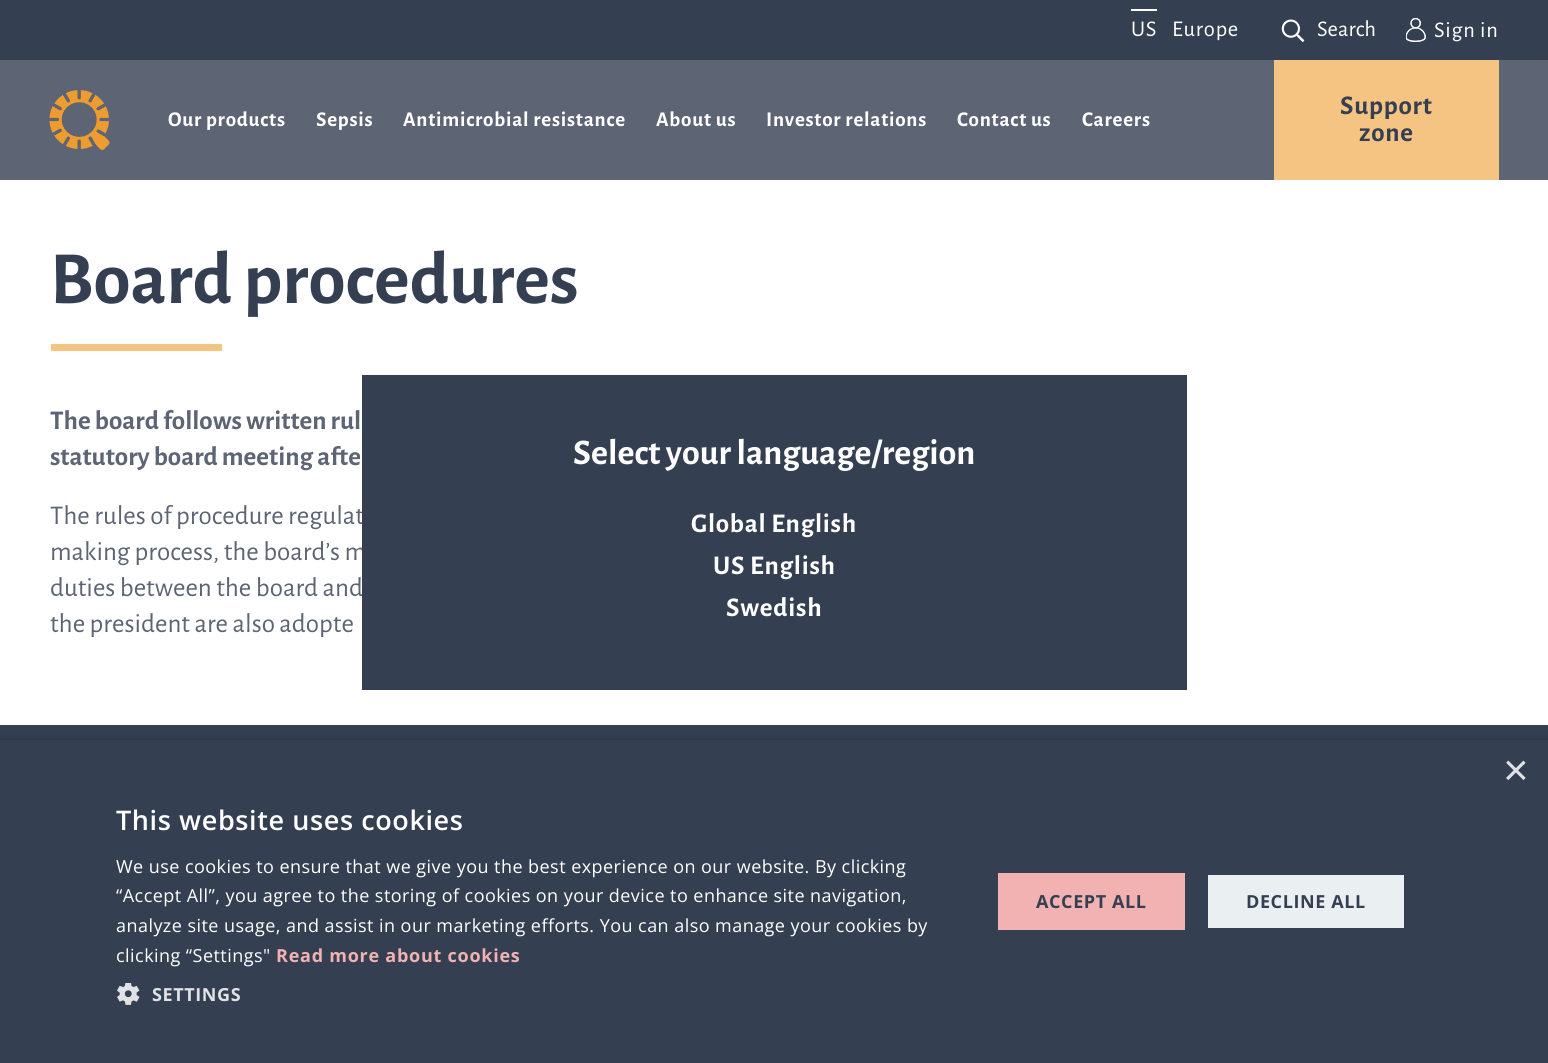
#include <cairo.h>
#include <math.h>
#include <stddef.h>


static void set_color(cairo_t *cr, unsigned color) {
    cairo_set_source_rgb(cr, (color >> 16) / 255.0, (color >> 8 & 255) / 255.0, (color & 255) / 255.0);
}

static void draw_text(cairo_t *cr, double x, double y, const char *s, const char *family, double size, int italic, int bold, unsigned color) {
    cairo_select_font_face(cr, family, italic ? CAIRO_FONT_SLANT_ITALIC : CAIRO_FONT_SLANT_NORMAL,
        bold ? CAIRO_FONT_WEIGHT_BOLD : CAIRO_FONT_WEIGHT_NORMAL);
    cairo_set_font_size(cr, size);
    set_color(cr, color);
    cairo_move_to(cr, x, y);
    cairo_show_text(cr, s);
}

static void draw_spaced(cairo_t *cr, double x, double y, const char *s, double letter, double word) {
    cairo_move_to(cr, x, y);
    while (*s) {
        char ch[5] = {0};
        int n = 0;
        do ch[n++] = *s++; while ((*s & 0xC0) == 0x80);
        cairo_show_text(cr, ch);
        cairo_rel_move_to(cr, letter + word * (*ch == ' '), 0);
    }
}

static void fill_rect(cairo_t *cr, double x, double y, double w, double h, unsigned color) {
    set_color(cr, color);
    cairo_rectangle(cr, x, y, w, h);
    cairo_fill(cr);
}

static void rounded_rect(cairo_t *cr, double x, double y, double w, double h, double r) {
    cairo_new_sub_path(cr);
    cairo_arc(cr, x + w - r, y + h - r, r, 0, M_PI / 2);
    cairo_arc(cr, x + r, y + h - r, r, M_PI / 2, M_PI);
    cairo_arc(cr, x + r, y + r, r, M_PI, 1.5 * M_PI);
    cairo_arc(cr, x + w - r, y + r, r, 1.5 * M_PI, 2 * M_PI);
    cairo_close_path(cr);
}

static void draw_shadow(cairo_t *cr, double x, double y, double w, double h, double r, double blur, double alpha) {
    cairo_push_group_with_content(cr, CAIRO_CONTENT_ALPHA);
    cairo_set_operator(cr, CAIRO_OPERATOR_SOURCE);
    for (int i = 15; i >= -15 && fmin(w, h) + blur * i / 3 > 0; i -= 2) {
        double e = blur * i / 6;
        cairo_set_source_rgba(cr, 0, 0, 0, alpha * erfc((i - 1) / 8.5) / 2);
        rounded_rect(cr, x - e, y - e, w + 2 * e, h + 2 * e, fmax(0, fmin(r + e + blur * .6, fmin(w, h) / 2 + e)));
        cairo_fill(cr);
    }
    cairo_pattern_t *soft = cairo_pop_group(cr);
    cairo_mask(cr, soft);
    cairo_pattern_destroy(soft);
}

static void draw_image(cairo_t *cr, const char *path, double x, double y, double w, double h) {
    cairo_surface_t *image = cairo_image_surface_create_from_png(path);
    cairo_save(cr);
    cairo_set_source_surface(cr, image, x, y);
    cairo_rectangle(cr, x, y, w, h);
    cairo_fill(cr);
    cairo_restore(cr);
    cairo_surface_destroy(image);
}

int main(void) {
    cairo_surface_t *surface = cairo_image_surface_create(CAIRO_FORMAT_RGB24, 1548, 1063);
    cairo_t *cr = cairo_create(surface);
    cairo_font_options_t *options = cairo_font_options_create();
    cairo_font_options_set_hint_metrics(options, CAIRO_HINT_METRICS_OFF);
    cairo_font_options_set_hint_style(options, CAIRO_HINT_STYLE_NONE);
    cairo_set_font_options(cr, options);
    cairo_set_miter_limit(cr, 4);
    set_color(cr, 0xFFFFFF);
    cairo_paint(cr);
    fill_rect(cr, 0, 60, 1548, 120, 0x5D6575);
    fill_rect(cr, 0, 0, 1548, 60, 0x343F52);
    cairo_select_font_face(cr, "Alegreya Sans", CAIRO_FONT_SLANT_NORMAL, CAIRO_FONT_WEIGHT_NORMAL);
    cairo_set_font_size(cr, 22.5);
    set_color(cr, 0xFFFFFF);
    draw_spaced(cr, 1131, 36, "US", 0.75, 0);
    fill_rect(cr, 1131, 9, 26, 2, 0xFFFFFF);
    draw_spaced(cr, 1172, 36, "Europe", 0.75, 0);
    draw_image(cr, "assets/img1.png", 1281, 19, 24, 23);
    draw_text(cr, 1317, 36, "Search", "Alegreya Sans", 22.5, 0, 0, 0xFFFFFF);
    draw_image(cr, "assets/img2.png", 1406, 18, 20, 24);
    draw_spaced(cr, 1434, 37, "Sign in", 0.75, 0);
    draw_image(cr, "assets/img3.png", 49, 90, 61, 60);
    cairo_select_font_face(cr, "Alegreya Sans", CAIRO_FONT_SLANT_NORMAL, CAIRO_FONT_WEIGHT_BOLD);
    cairo_set_font_size(cr, 21);
    draw_spaced(cr, 168, 126, "Our products", 0.75, 0);
    cairo_save(cr);
    cairo_rectangle(cr, 317, 60, 57, 120);
    cairo_clip(cr);
    draw_spaced(cr, 316, 126, "Sepsis", 0.75, 0);
    cairo_restore(cr);
    draw_spaced(cr, 403, 126, "Antimicrobial resistance", 0.75, 0);
    draw_spaced(cr, 656, 126, "About us", 0.75, 0);
    draw_spaced(cr, 766, 126, "Investor relations", 0.75, 0);
    draw_spaced(cr, 957, 126, "Contact us", 0.75, 0);
    draw_spaced(cr, 1082, 126, "Careers", 0.75, 0);
    fill_rect(cr, 1274, 60, 225, 120, 0xF5C482);
    cairo_set_font_size(cr, 27);
    set_color(cr, 0x343F52);
    draw_spaced(cr, 1340, 114, "Support", 0.75, 0);
    draw_spaced(cr, 1359, 141, "zone", 0.75, 0);
    draw_text(cr, 50, 303, "Board procedures", "Alegreya Sans", 75, 0, 1, 0x343F52);
    fill_rect(cr, 51, 344, 171, 7, 0xF5C482);
    draw_text(cr, 50, 429, "The board follows written rul", "Alegreya Sans", 27, 0, 1, 0x5D6575);
    draw_text(cr, 50, 465, "statutory board meeting afte", "Alegreya Sans", 27, 0, 1, 0x5D6575);
    draw_text(cr, 50, 524, "The rules of procedure regulat", "Alegreya Sans", 27, 0, 0, 0x5D6575);
    draw_text(cr, 50, 560, "making process, the board’s m", "Alegreya Sans", 27, 0, 0, 0x5D6575);
    draw_text(cr, 50, 596, "duties between the board and", "Alegreya Sans", 27, 0, 0, 0x5D6575);
    draw_text(cr, 50, 632, "the president are also adopte", "Alegreya Sans", 27, 0, 0, 0x5D6575);
    fill_rect(cr, 362, 375, 825, 315, 0x343F52);
    draw_text(cr, 573, 464, "Select your language/region", "Alegreya Sans", 36, 0, 1, 0xFFFFFF);
    cairo_set_font_size(cr, 27);
    draw_spaced(cr, 691, 532, "Global English", 0.75, 0);
    draw_spaced(cr, 713, 574, "US English", 0.75, 0);
    draw_spaced(cr, 726, 616, "Swedish", 0.75, 0);
    fill_rect(cr, 0, 725, 1548, 15, 0x343F52);
    set_color(cr, 0x000000);
    draw_shadow(cr, 2, 743, 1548, 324, 0, 6, 0.35);
    fill_rect(cr, 0, 740, 1548, 323, 0x343F52);
    draw_text(cr, 1503, 785, "×", "Liberation Sans", 44, 0, 0, 0xE1E2E5);
    cairo_select_font_face(cr, "Open Sans SemiBold", CAIRO_FONT_SLANT_NORMAL, CAIRO_FONT_WEIGHT_NORMAL);
    cairo_set_font_size(cr, 27);
    set_color(cr, 0xFFFFFF);
    draw_spaced(cr, 116, 830, "This website uses cookies", 0.6, 0);
    cairo_select_font_face(cr, "Open Sans", CAIRO_FONT_SLANT_NORMAL, CAIRO_FONT_WEIGHT_NORMAL);
    cairo_set_font_size(cr, 18);
    draw_spaced(cr, 116, 873, "We use cookies to ensure that we give you the best experience on our website. By clicking", 0.45, 0);
    draw_spaced(cr, 116, 902, "“Accept All”, you agree to the storing of cookies on your device to enhance site navigation,", 0.45, 0);
    draw_spaced(cr, 116, 932, "analyze site usage, and assist in our marketing efforts. You can also manage your cookies by", 0.45, 0);
    draw_spaced(cr, 116, 962, "clicking “Settings\"", 0.45, 0);
    cairo_select_font_face(cr, "Open Sans", CAIRO_FONT_SLANT_NORMAL, CAIRO_FONT_WEIGHT_BOLD);
    set_color(cr, 0xF1B2B1);
    draw_spaced(cr, 276, 962, "Read more about cookies", 0.75, 0);
    draw_image(cr, "assets/img4.png", 117, 983, 23, 22);
    set_color(cr, 0xE1E2E5);
    draw_spaced(cr, 152, 1001, "SETTINGS", 0.6, 0);
    fill_rect(cr, 998, 873, 187, 57, 0xF1B2B1);
    set_color(cr, 0x343F52);
    draw_spaced(cr, 1036, 908, "ACCEPT ALL", 0.6, 0);
    fill_rect(cr, 1208, 875, 196, 53, 0xEAEFF2);
    set_color(cr, 0x343F52);
    draw_spaced(cr, 1246, 908, "DECLINE ALL", 0.6, 0);
    cairo_surface_write_to_png(surface, "output.png");
    cairo_font_options_destroy(options);
    cairo_destroy(cr);
    cairo_surface_destroy(surface);
    return 0;
}
